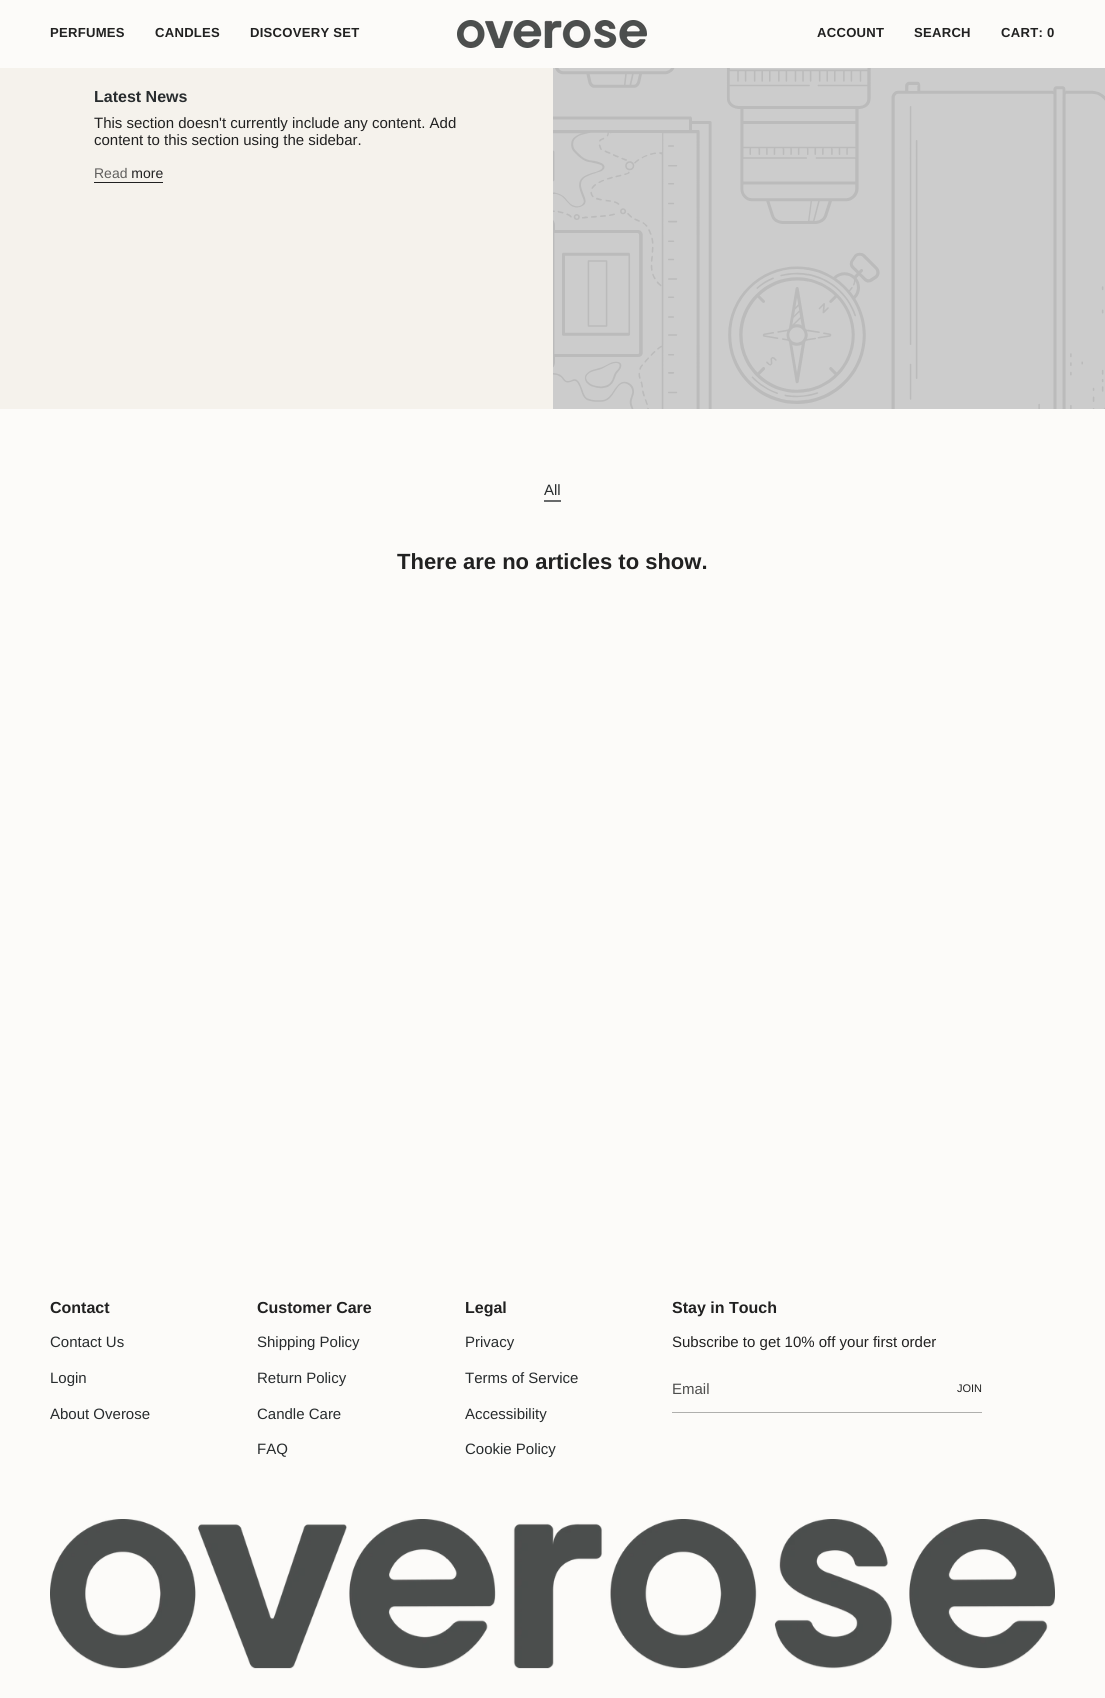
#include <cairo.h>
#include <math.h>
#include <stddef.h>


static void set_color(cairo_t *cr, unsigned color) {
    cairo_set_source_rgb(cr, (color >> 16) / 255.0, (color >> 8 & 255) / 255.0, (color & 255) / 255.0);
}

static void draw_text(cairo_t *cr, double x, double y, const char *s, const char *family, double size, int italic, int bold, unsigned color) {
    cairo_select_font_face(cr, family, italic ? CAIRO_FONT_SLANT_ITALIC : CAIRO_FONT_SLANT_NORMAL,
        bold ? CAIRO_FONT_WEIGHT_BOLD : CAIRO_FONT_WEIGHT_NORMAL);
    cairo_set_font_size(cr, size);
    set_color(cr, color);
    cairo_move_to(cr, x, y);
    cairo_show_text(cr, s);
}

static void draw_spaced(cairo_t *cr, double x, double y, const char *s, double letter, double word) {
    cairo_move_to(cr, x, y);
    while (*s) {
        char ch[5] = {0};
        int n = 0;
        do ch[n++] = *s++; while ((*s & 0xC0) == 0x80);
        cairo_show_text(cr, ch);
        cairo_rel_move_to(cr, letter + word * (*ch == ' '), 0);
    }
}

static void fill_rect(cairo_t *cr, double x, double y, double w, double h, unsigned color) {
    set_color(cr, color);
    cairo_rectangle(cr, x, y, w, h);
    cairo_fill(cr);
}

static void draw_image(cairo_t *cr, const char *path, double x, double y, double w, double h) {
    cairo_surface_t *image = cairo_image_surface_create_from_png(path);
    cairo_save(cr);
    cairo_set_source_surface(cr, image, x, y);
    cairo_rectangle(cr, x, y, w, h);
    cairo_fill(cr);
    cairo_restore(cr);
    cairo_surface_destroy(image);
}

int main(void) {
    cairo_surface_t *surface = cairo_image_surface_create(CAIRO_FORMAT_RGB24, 1105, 1698);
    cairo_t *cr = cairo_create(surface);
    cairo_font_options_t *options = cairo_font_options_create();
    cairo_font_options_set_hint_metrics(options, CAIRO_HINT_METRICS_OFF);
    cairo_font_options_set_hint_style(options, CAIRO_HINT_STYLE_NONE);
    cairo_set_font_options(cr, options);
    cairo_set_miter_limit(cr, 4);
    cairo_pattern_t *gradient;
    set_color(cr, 0xFCFBF9);
    cairo_paint(cr);
    cairo_select_font_face(cr, "Liberation Sans", CAIRO_FONT_SLANT_NORMAL, CAIRO_FONT_WEIGHT_BOLD);
    cairo_set_font_size(cr, 13.1);
    set_color(cr, 0x212121);
    draw_spaced(cr, 50, 37, "PERFUMES", 0.25, 0);
    draw_spaced(cr, 155, 37, "CANDLES", 0.25, 0);
    draw_spaced(cr, 250, 37, "DISCOVERY SET", 0.25, 0);
    draw_image(cr, "assets/img1.png", 457, 20, 190, 28);
    draw_spaced(cr, 817, 37, "ACCOUNT", 0.25, 0);
    draw_spaced(cr, 914, 37, "SEARCH", 0.25, 0);
    draw_spaced(cr, 1001, 37, "CART: 0", 0.25, 0);
    fill_rect(cr, 0, 68, 553, 341, 0xF5F2EC);
    draw_text(cr, 94, 102, "Latest News", "Liberation Sans", 16, 0, 1, 0x282C2E);
    draw_text(cr, 94, 128, "This section doesn't currently include any content. Add", "Liberation Sans", 15, 0, 0, 0x212121);
    draw_text(cr, 94, 145, "content to this section using the sidebar.", "Liberation Sans", 15, 0, 0, 0x212121);
    cairo_set_font_size(cr, 14);
    gradient = cairo_pattern_create_linear(94, 174, 163, 174);
    cairo_pattern_add_color_stop_rgba(gradient, 0, 0.38, 0.376, 0.369, 1);
    cairo_pattern_add_color_stop_rgba(gradient, 0.5, 0.38, 0.376, 0.369, 1);
    cairo_pattern_add_color_stop_rgba(gradient, 0.5, 0.129, 0.129, 0.129, 1);
    cairo_pattern_add_color_stop_rgba(gradient, 1, 0.129, 0.129, 0.129, 1);
    cairo_set_source(cr, gradient);
    cairo_pattern_destroy(gradient);
    cairo_move_to(cr, 94, 178);
    cairo_show_text(cr, "Read more");
    fill_rect(cr, 94, 182, 69, 1, 0x212121);
    draw_image(cr, "assets/img2.png", 553, 68, 552, 341);
    draw_text(cr, 544, 495, "All", "Liberation Sans", 15, 0, 0, 0x282C2E);
    fill_rect(cr, 544, 500, 17, 2, 0x686A6B);
    draw_text(cr, 397, 569, "There are no articles to show.", "Liberation Sans", 22, 0, 1, 0x212121);
    draw_text(cr, 50, 1313, "Contact", "Liberation Sans", 16, 0, 1, 0x212121);
    draw_text(cr, 50, 1347, "Contact Us", "Liberation Sans", 15, 0, 0, 0x282C2E);
    draw_text(cr, 50, 1383, "Login", "Liberation Sans", 15, 0, 0, 0x282C2E);
    draw_text(cr, 50, 1419, "About Overose", "Liberation Sans", 15, 0, 0, 0x282C2E);
    draw_text(cr, 257, 1313, "Customer Care", "Liberation Sans", 16, 0, 1, 0x212121);
    draw_text(cr, 257, 1347, "Shipping Policy", "Liberation Sans", 15, 0, 0, 0x282C2E);
    draw_text(cr, 257, 1383, "Return Policy", "Liberation Sans", 15, 0, 0, 0x282C2E);
    draw_text(cr, 257, 1419, "Candle Care", "Liberation Sans", 15, 0, 0, 0x282C2E);
    draw_text(cr, 257, 1454, "FAQ", "Liberation Sans", 15, 0, 0, 0x282C2E);
    draw_text(cr, 465, 1313, "Legal", "Liberation Sans", 16, 0, 1, 0x212121);
    draw_text(cr, 465, 1347, "Privacy", "Liberation Sans", 15, 0, 0, 0x282C2E);
    draw_text(cr, 465, 1383, "Terms of Service", "Liberation Sans", 15, 0, 0, 0x282C2E);
    draw_text(cr, 465, 1419, "Accessibility", "Liberation Sans", 15, 0, 0, 0x282C2E);
    draw_text(cr, 465, 1454, "Cookie Policy", "Liberation Sans", 15, 0, 0, 0x282C2E);
    draw_text(cr, 672, 1313, "Stay in Touch", "Liberation Sans", 16, 0, 1, 0x212121);
    draw_text(cr, 672, 1347, "Subscribe to get 10% off your first order", "Liberation Sans", 15, 0, 0, 0x212121);
    fill_rect(cr, 672, 1412, 310, 1, 0xAFAFAD);
    draw_text(cr, 672, 1394, "Email", "Liberation Sans", 15, 0, 0, 0x4D4D4C);
    draw_text(cr, 957, 1392, "JOIN", "Liberation Sans", 11, 0, 0, 0x212121);
    draw_image(cr, "assets/img3.png", 50, 1519, 1005, 150);
    cairo_surface_write_to_png(surface, "output.png");
    cairo_font_options_destroy(options);
    cairo_destroy(cr);
    cairo_surface_destroy(surface);
    return 0;
}
